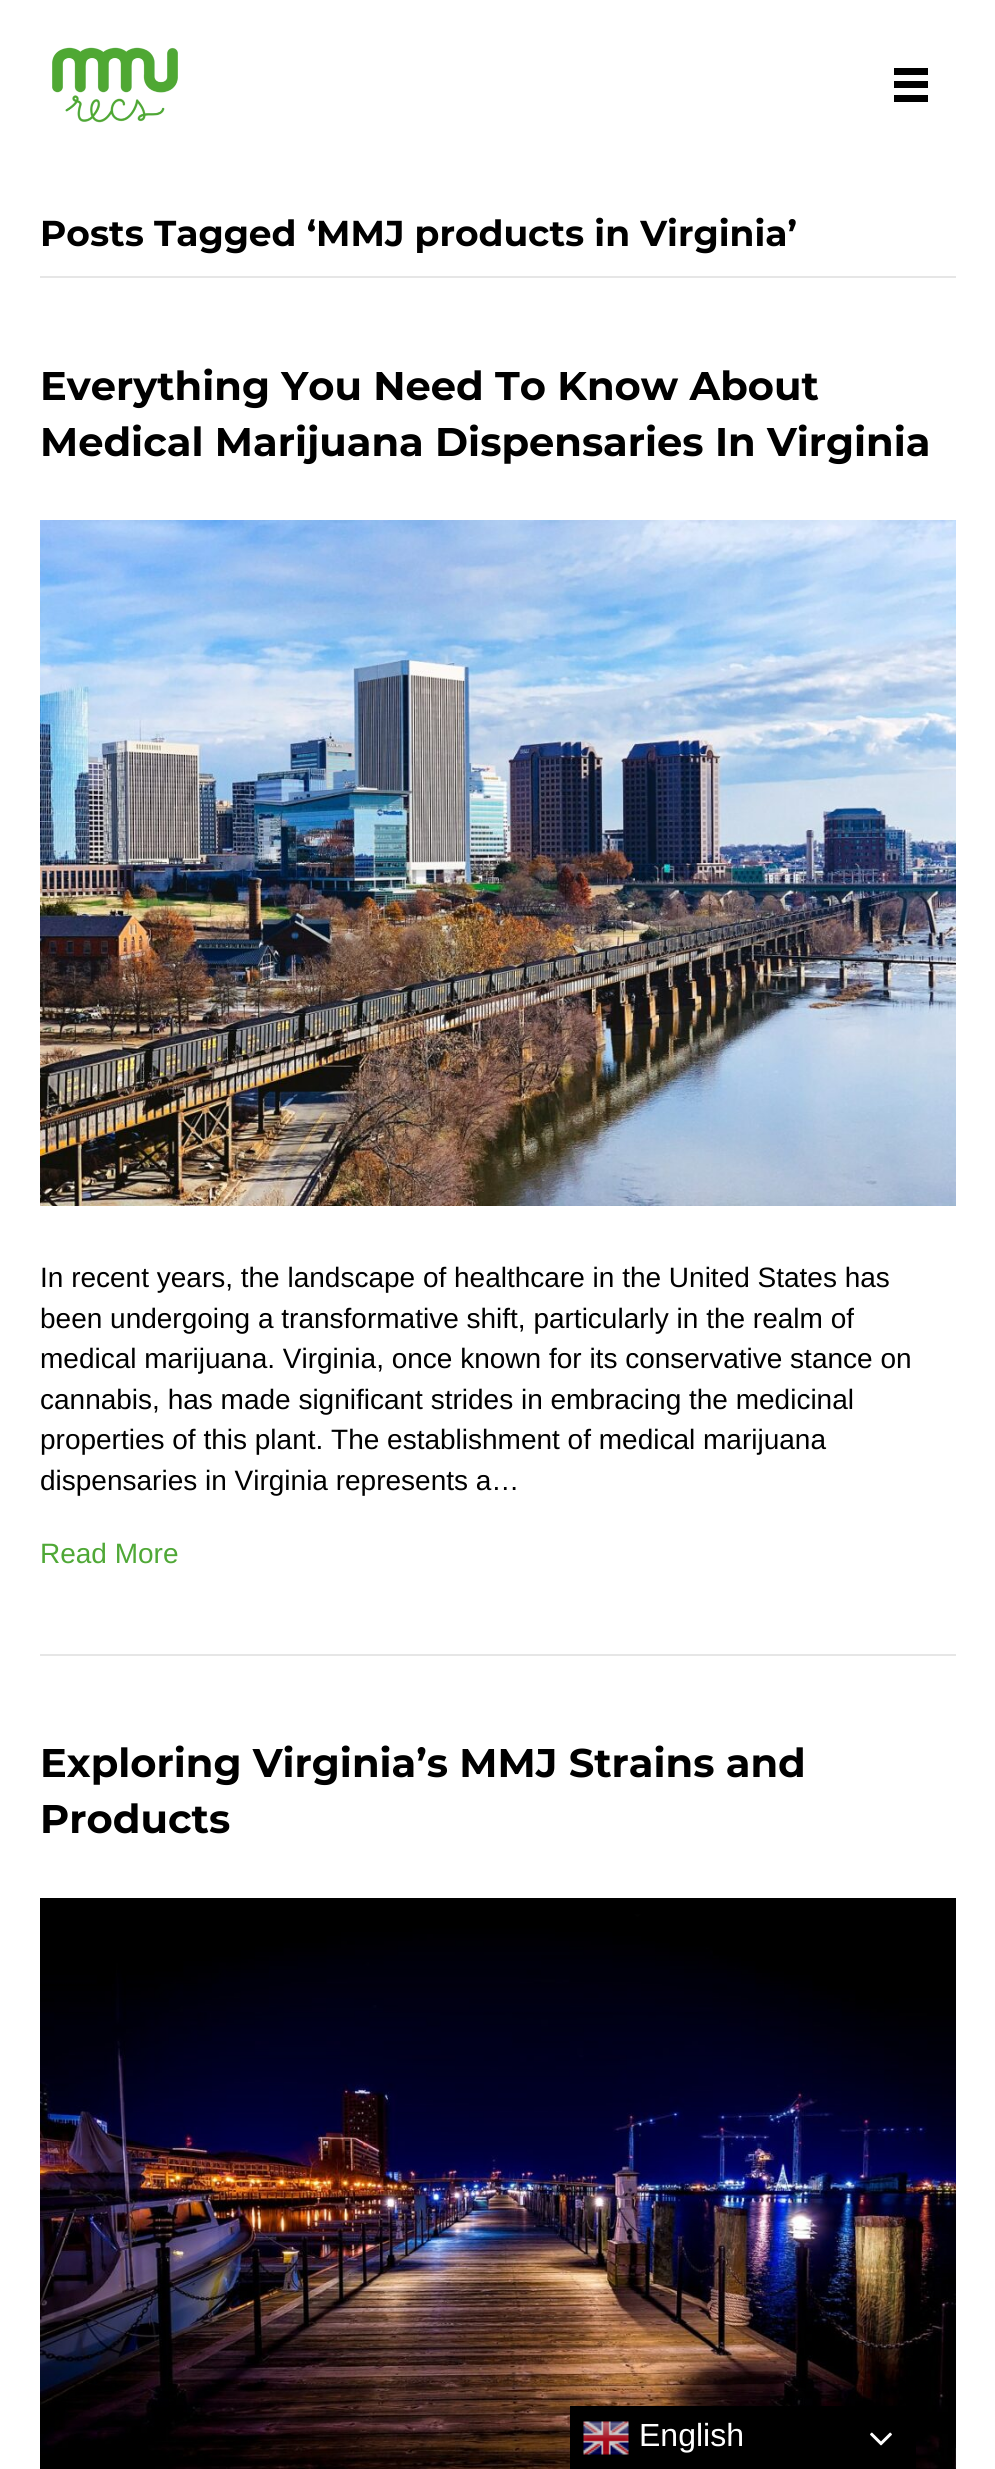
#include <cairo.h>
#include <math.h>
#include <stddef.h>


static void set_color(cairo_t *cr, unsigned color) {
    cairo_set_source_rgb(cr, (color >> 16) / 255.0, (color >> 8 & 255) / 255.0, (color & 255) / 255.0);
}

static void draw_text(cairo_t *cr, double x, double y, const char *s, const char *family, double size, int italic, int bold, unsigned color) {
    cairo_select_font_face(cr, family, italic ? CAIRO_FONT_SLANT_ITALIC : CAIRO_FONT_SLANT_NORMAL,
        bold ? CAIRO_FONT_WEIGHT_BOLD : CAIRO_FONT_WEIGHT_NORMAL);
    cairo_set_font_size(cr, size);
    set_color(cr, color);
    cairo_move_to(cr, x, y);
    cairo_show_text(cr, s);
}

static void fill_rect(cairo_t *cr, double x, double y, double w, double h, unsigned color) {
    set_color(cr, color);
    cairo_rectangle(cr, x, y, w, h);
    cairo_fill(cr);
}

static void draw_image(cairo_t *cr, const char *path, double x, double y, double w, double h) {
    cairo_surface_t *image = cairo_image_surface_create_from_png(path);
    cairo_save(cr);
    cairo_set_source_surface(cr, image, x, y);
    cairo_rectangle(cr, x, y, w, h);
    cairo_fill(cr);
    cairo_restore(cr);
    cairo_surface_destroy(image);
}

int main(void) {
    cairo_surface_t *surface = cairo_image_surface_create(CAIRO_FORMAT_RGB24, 995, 2469);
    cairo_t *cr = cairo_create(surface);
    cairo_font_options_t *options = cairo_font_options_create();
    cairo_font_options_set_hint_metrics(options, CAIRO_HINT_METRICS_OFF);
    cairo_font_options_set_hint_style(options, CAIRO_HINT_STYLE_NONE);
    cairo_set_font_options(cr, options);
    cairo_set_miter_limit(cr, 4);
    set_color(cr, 0xFFFFFF);
    cairo_paint(cr);
    draw_image(cr, "assets/img1.png", 52, 47, 126, 76);
    fill_rect(cr, 894, 68, 34, 7, 0x000000);
    fill_rect(cr, 894, 81, 34, 7, 0x000000);
    fill_rect(cr, 894, 95, 34, 7, 0x000000);
    fill_rect(cr, 40, 276, 916, 2, 0xE6E6E6);
    draw_text(cr, 40, 246, "Posts Tagged ‘MMJ products in Virginia’", "Montserrat Thin", 36, 0, 0, 0x000000);
    fill_rect(cr, 40, 1654, 916, 2, 0xE6E6E6);
    draw_text(cr, 40, 400, "Everything You Need To Know About", "Montserrat Thin", 40, 0, 0, 0x000000);
    draw_text(cr, 40, 456, "Medical Marijuana Dispensaries In Virginia", "Montserrat Thin", 40, 0, 0, 0x000000);
    draw_image(cr, "assets/img2.png", 40, 520, 916, 686);
    draw_text(cr, 40, 1287, "In recent years, the landscape of healthcare in the United States has", "Liberation Sans", 28, 0, 0, 0x000000);
    draw_text(cr, 40, 1328, "been undergoing a transformative shift, particularly in the realm of", "Liberation Sans", 28, 0, 0, 0x000000);
    draw_text(cr, 40, 1368, "medical marijuana. Virginia, once known for its conservative stance on", "Liberation Sans", 28, 0, 0, 0x000000);
    draw_text(cr, 40, 1409, "cannabis, has made significant strides in embracing the medicinal", "Liberation Sans", 28, 0, 0, 0x000000);
    draw_text(cr, 40, 1449, "properties of this plant. The establishment of medical marijuana", "Liberation Sans", 28, 0, 0, 0x000000);
    draw_text(cr, 40, 1490, "dispensaries in Virginia represents a…", "Liberation Sans", 28, 0, 0, 0x000000);
    draw_text(cr, 40, 1563, "Read More", "Liberation Sans", 28, 0, 0, 0x4FA836);
    draw_text(cr, 40, 1777, "Exploring Virginia’s MMJ Strains and", "Montserrat Thin", 40, 0, 0, 0x000000);
    draw_text(cr, 40, 1833, "Products", "Montserrat Thin", 40, 0, 0, 0x000000);
    draw_image(cr, "assets/img3.png", 40, 1898, 916, 571);
    fill_rect(cr, 570, 2406, 346, 63, 0x000000);
    draw_image(cr, "assets/img4.png", 583, 2421, 46, 34);
    draw_text(cr, 639, 2446, "English", "Liberation Sans", 32, 0, 0, 0xFFFFFF);
    draw_image(cr, "assets/img5.png", 870, 2432, 22, 14);
    cairo_surface_write_to_png(surface, "output.png");
    cairo_font_options_destroy(options);
    cairo_destroy(cr);
    cairo_surface_destroy(surface);
    return 0;
}
